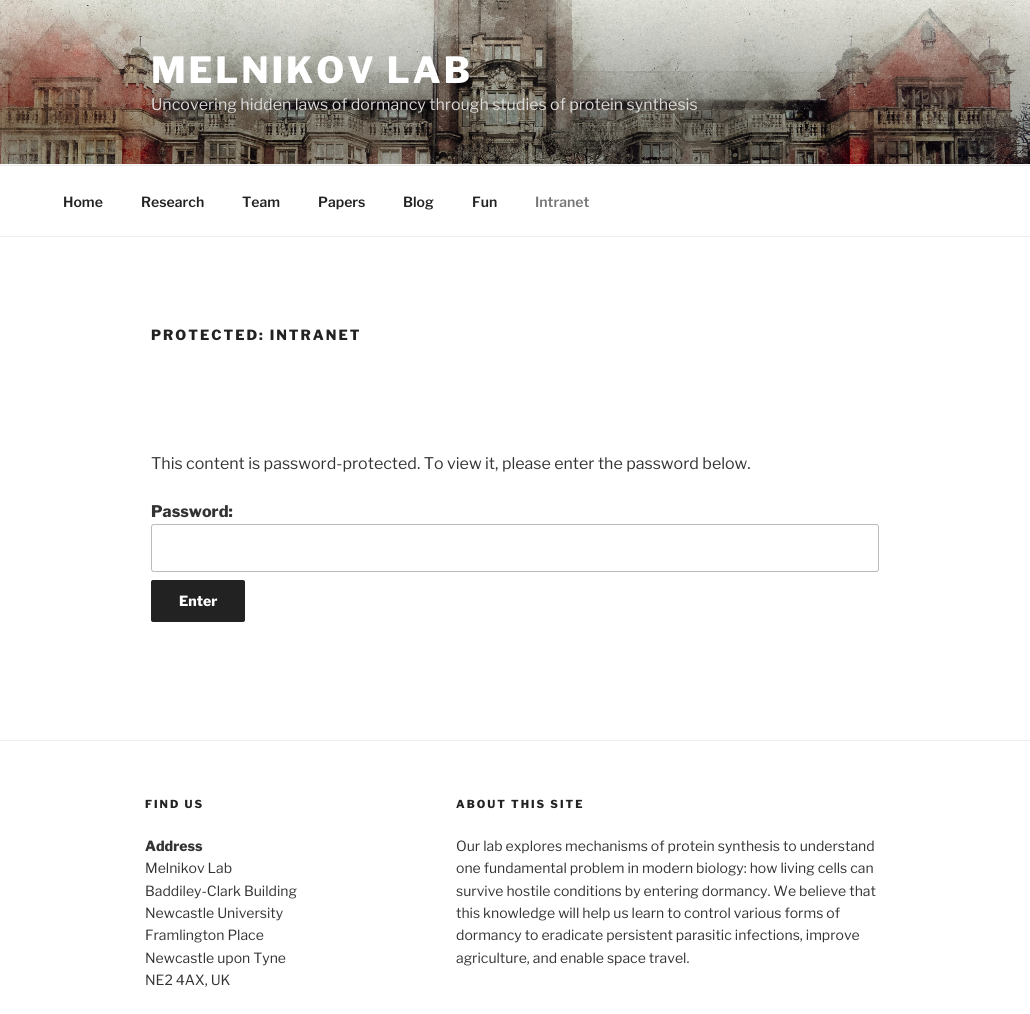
#include <cairo.h>
#include <math.h>
#include <stddef.h>


static void set_color(cairo_t *cr, unsigned color) {
    cairo_set_source_rgb(cr, (color >> 16) / 255.0, (color >> 8 & 255) / 255.0, (color & 255) / 255.0);
}

static void draw_text(cairo_t *cr, double x, double y, const char *s, const char *family, double size, int italic, int bold, unsigned color) {
    cairo_select_font_face(cr, family, italic ? CAIRO_FONT_SLANT_ITALIC : CAIRO_FONT_SLANT_NORMAL,
        bold ? CAIRO_FONT_WEIGHT_BOLD : CAIRO_FONT_WEIGHT_NORMAL);
    cairo_set_font_size(cr, size);
    set_color(cr, color);
    cairo_move_to(cr, x, y);
    cairo_show_text(cr, s);
}

static void draw_spaced(cairo_t *cr, double x, double y, const char *s, double letter, double word) {
    cairo_move_to(cr, x, y);
    while (*s) {
        char ch[5] = {0};
        int n = 0;
        do ch[n++] = *s++; while ((*s & 0xC0) == 0x80);
        cairo_show_text(cr, ch);
        cairo_rel_move_to(cr, letter + word * (*ch == ' '), 0);
    }
}

static void fill_rect(cairo_t *cr, double x, double y, double w, double h, unsigned color) {
    set_color(cr, color);
    cairo_rectangle(cr, x, y, w, h);
    cairo_fill(cr);
}

static void rounded_rect(cairo_t *cr, double x, double y, double w, double h, double r) {
    cairo_new_sub_path(cr);
    cairo_arc(cr, x + w - r, y + h - r, r, 0, M_PI / 2);
    cairo_arc(cr, x + r, y + h - r, r, M_PI / 2, M_PI);
    cairo_arc(cr, x + r, y + r, r, M_PI, 1.5 * M_PI);
    cairo_arc(cr, x + w - r, y + r, r, 1.5 * M_PI, 2 * M_PI);
    cairo_close_path(cr);
}

static void draw_image(cairo_t *cr, const char *path, double x, double y, double w, double h) {
    cairo_surface_t *image = cairo_image_surface_create_from_png(path);
    cairo_save(cr);
    cairo_set_source_surface(cr, image, x, y);
    cairo_rectangle(cr, x, y, w, h);
    cairo_fill(cr);
    cairo_restore(cr);
    cairo_surface_destroy(image);
}

int main(void) {
    cairo_surface_t *surface = cairo_image_surface_create(CAIRO_FORMAT_RGB24, 1030, 1014);
    cairo_t *cr = cairo_create(surface);
    cairo_font_options_t *options = cairo_font_options_create();
    cairo_font_options_set_hint_metrics(options, CAIRO_HINT_METRICS_OFF);
    cairo_font_options_set_hint_style(options, CAIRO_HINT_STYLE_NONE);
    cairo_set_font_options(cr, options);
    cairo_set_miter_limit(cr, 4);
    set_color(cr, 0xFFFFFF);
    cairo_paint(cr);
    fill_rect(cr, 0, 164, 1030, 1, 0xFAFAFA);
    draw_image(cr, "assets/img1.png", 0, 0, 1030, 164);
    cairo_select_font_face(cr, "Libre Franklin Thin", CAIRO_FONT_SLANT_NORMAL, CAIRO_FONT_WEIGHT_NORMAL);
    cairo_set_font_size(cr, 36);
    set_color(cr, 0xFFFFFF);
    draw_spaced(cr, 151, 83, "MELNIKOV LAB", 2.9, 0);
    draw_text(cr, 151, 110, "Uncovering hidden laws of dormancy through studies of protein synthesis", "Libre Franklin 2 Thin", 16, 0, 0, 0xDAD9D8);
    fill_rect(cr, 0, 165, 1030, 1, 0xEEEEEE);
    fill_rect(cr, 0, 236, 1030, 1, 0xEEEEEE);
    draw_text(cr, 63, 207, "Home", "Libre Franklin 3 Thin", 14, 0, 0, 0x222222);
    draw_text(cr, 141, 207, "Research", "Libre Franklin 3 Thin", 14, 0, 0, 0x222222);
    draw_text(cr, 242, 207, "Team", "Libre Franklin 3 Thin", 14, 0, 0, 0x222222);
    draw_text(cr, 318, 207, "Papers", "Libre Franklin 3 Thin", 14, 0, 0, 0x222222);
    draw_text(cr, 403, 207, "Blog", "Libre Franklin 3 Thin", 14, 0, 0, 0x222222);
    draw_text(cr, 472, 207, "Fun", "Libre Franklin 3 Thin", 14, 0, 0, 0x222222);
    draw_text(cr, 535, 207, "Intranet", "Libre Franklin 3 Thin", 14, 0, 0, 0x767676);
    cairo_select_font_face(cr, "Libre Franklin Thin", CAIRO_FONT_SLANT_NORMAL, CAIRO_FONT_WEIGHT_NORMAL);
    set_color(cr, 0x222222);
    draw_spaced(cr, 151, 340, "PROTECTED: INTRANET", 2, 0);
    draw_text(cr, 151, 469, "This content is password-protected. To view it, please enter the password below.", "Libre Franklin 2 Thin", 16, 0, 0, 0x333333);
    draw_text(cr, 151, 517, "Password:", "Libre Franklin Thin", 16, 0, 0, 0x333333);
    rounded_rect(cr, 151.5, 524.5, 727, 47, 2.5);
    set_color(cr, 0xBBBBBB);
    cairo_set_line_width(cr, 1);
    cairo_stroke(cr);
    set_color(cr, 0x222222);
    rounded_rect(cr, 151, 580, 94, 42, 2);
    cairo_fill(cr);
    draw_text(cr, 179, 606, "Enter", "Libre Franklin Thin", 14, 0, 0, 0xFFFFFF);
    fill_rect(cr, 0, 740, 1030, 1, 0xEEEEEE);
    cairo_set_font_size(cr, 11);
    set_color(cr, 0x222222);
    draw_spaced(cr, 145, 808, "FIND US", 2, 0);
    draw_text(cr, 145, 851, "Address", "Libre Franklin Thin", 14, 0, 0, 0x333333);
    draw_text(cr, 145, 873, "Melnikov Lab", "Libre Franklin 2 Thin", 14, 0, 0, 0x333333);
    draw_text(cr, 145, 896, "Baddiley-Clark Building", "Libre Franklin 2 Thin", 14, 0, 0, 0x333333);
    draw_text(cr, 145, 918, "Newcastle University", "Libre Franklin 2 Thin", 14, 0, 0, 0x333333);
    draw_text(cr, 145, 940, "Framlington Place", "Libre Franklin 2 Thin", 14, 0, 0, 0x333333);
    draw_text(cr, 145, 963, "Newcastle upon Tyne", "Libre Franklin 2 Thin", 14, 0, 0, 0x333333);
    draw_text(cr, 145, 985, "NE2 4AX, UK", "Libre Franklin 2 Thin", 14, 0, 0, 0x333333);
    cairo_select_font_face(cr, "Libre Franklin Thin", CAIRO_FONT_SLANT_NORMAL, CAIRO_FONT_WEIGHT_NORMAL);
    cairo_set_font_size(cr, 11);
    set_color(cr, 0x222222);
    draw_spaced(cr, 456, 808, "ABOUT THIS SITE", 2, 0);
    draw_text(cr, 456, 851, "Our lab explores mechanisms of protein synthesis to understand", "Libre Franklin 2 Thin", 14, 0, 0, 0x333333);
    draw_text(cr, 456, 873, "one fundamental problem in modern biology: how living cells can", "Libre Franklin 2 Thin", 14, 0, 0, 0x333333);
    draw_text(cr, 456, 896, "survive hostile conditions by entering dormancy. We believe that", "Libre Franklin 2 Thin", 14, 0, 0, 0x333333);
    draw_text(cr, 456, 918, "this knowledge will help us learn to control various forms of", "Libre Franklin 2 Thin", 14, 0, 0, 0x333333);
    draw_text(cr, 456, 940, "dormancy to eradicate persistent parasitic infections, improve", "Libre Franklin 2 Thin", 14, 0, 0, 0x333333);
    draw_text(cr, 456, 963, "agriculture, and enable space travel.", "Libre Franklin 2 Thin", 14, 0, 0, 0x333333);
    cairo_surface_write_to_png(surface, "output.png");
    cairo_font_options_destroy(options);
    cairo_destroy(cr);
    cairo_surface_destroy(surface);
    return 0;
}
